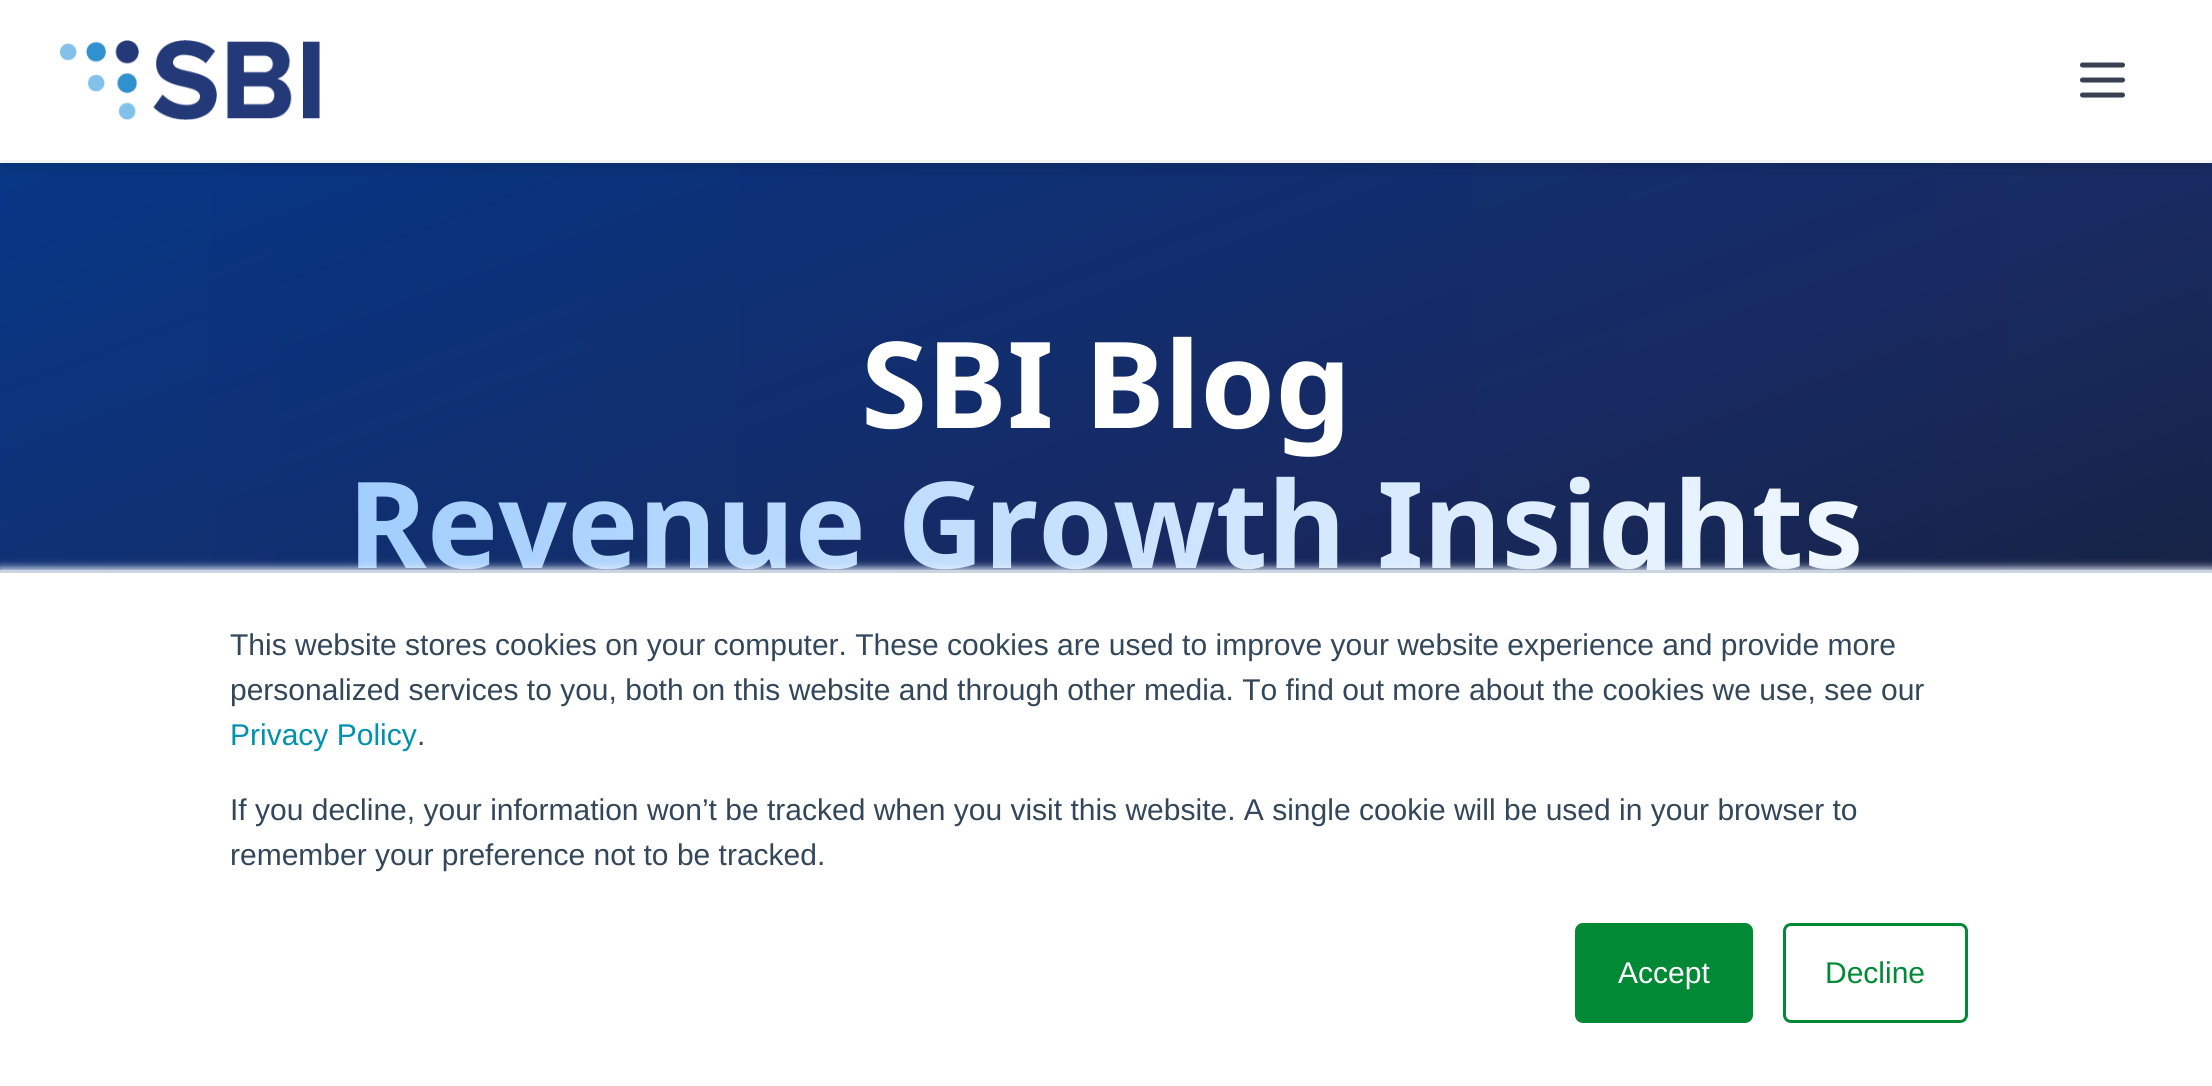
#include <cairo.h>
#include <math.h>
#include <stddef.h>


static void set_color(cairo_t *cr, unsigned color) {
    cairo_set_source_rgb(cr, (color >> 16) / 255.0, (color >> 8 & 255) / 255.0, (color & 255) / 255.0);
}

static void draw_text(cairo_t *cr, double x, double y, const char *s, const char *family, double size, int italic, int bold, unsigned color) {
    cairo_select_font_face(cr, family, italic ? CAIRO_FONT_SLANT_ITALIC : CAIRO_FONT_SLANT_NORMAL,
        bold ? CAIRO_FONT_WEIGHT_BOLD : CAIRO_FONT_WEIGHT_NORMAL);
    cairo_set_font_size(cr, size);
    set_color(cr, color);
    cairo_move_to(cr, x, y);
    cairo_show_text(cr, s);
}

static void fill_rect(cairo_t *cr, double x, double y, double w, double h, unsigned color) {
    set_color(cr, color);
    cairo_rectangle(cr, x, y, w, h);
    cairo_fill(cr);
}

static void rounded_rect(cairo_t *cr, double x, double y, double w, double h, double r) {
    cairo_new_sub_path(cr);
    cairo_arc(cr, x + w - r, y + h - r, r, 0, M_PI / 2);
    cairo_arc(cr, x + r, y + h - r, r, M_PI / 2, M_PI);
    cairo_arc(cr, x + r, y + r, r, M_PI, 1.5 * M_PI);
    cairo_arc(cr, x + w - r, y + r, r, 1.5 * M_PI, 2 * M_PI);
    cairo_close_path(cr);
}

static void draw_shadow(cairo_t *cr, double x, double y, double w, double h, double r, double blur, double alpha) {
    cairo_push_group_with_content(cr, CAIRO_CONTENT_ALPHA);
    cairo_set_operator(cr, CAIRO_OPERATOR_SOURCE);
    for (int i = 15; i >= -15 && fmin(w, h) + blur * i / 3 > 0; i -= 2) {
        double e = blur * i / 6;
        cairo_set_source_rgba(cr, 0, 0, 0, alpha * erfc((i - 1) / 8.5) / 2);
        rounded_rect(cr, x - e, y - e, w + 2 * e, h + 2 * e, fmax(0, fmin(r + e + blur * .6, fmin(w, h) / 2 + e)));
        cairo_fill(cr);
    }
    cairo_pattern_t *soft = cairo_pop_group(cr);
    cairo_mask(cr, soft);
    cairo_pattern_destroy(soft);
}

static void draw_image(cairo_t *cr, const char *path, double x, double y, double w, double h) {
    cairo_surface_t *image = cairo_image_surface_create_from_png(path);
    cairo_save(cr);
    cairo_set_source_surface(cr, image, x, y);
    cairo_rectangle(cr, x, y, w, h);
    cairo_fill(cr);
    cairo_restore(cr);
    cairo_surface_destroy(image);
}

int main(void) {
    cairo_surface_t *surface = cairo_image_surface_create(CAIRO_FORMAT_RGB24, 2212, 1086);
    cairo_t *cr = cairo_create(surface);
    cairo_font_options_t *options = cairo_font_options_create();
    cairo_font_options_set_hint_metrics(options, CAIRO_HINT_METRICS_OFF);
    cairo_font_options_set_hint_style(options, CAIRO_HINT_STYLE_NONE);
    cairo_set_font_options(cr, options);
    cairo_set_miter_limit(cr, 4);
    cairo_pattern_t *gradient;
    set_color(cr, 0xFFFFFF);
    cairo_paint(cr);
    gradient = cairo_pattern_create_linear(823, -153, 1389, 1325);
    cairo_pattern_add_color_stop_rgba(gradient, 0, 0.012, 0.196, 0.486, 1);
    cairo_pattern_add_color_stop_rgba(gradient, 0.5, 0.09, 0.145, 0.329, 1);
    cairo_pattern_add_color_stop_rgba(gradient, 1, 0.071, 0.071, 0.071, 1);
    cairo_set_source(cr, gradient);
    cairo_pattern_destroy(gradient);
    cairo_rectangle(cr, 0, 163, 2212, 407);
    cairo_fill(cr);
    gradient = cairo_pattern_create_linear(0, 586, 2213, 586);
    cairo_pattern_add_color_stop_rgba(gradient, 0, 0.145, 0.388, 0.922, 0.1);
    cairo_pattern_add_color_stop_rgba(gradient, 0.5, 0.114, 0.306, 0.847, 0.1);
    cairo_pattern_add_color_stop_rgba(gradient, 1, 0.145, 0.388, 0.922, 0.1);
    cairo_set_source(cr, gradient);
    cairo_pattern_destroy(gradient);
    cairo_rectangle(cr, 0, 163, 2212, 407);
    cairo_fill(cr);
    cairo_save(cr);
    cairo_rectangle(cr, 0, 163, 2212, 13);
    cairo_clip(cr);
    set_color(cr, 0x000000);
    draw_shadow(cr, 3, 13, 2207, 157, 0, 7.5, 0.1);
    cairo_restore(cr);
    fill_rect(cr, 0, 160, 2212, 3, 0xF3F4F6);
    draw_image(cr, "assets/img1.png", 60, 40, 260, 80);
    cairo_new_path(cr);
    cairo_move_to(cr, 2082.5, 80);
    cairo_line_to(cr, 2122.5, 80);
    cairo_move_to(cr, 2082.5, 65);
    cairo_line_to(cr, 2122.5, 65);
    cairo_move_to(cr, 2082.5, 95);
    cairo_line_to(cr, 2122.5, 95);
    set_color(cr, 0x374151);
    cairo_set_line_width(cr, 5);
    cairo_set_line_cap(cr, CAIRO_LINE_CAP_ROUND);
    cairo_set_line_join(cr, CAIRO_LINE_JOIN_ROUND);
    cairo_stroke(cr);
    draw_text(cr, 861, 428, "SBI Blog", "Noto Sans", 120, 0, 1, 0xFFFFFF);
    gradient = cairo_pattern_create_linear(60, 535, 2153, 535);
    cairo_pattern_add_color_stop_rgba(gradient, 0, 0.576, 0.773, 0.992, 1);
    cairo_pattern_add_color_stop_rgba(gradient, 1, 1, 1, 1, 1);
    cairo_set_source(cr, gradient);
    cairo_pattern_destroy(gradient);
    cairo_move_to(cr, 348, 568);
    cairo_show_text(cr, "Revenue Growth Insights");
    set_color(cr, 0xEAF0F6);
    draw_shadow(cr, 0, 568, 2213, 517, 0, 4, 1);
    fill_rect(cr, 0, 573, 2212, 513, 0xFFFFFF);
    fill_rect(cr, 0, 570, 2212, 3, 0xCBD6E2);
    draw_text(cr, 230, 655, "This website stores cookies on your computer. These cookies are used to improve your website experience and provide more", "Liberation Sans", 30, 0, 0, 0x33475B);
    draw_text(cr, 230, 700, "personalized services to you, both on this website and through other media. To find out more about the cookies we use, see our", "Liberation Sans", 30, 0, 0, 0x33475B);
    draw_text(cr, 230, 745, "Privacy Policy", "Liberation Sans", 30, 0, 0, 0x0091AE);
    draw_text(cr, 417, 745, ".", "Liberation Sans", 30, 0, 0, 0x33475B);
    draw_text(cr, 230, 820, "If you decline, your information won’t be tracked when you visit this website. A single cookie will be used in your browser to", "Liberation Sans", 30, 0, 0, 0x33475B);
    draw_text(cr, 230, 865, "remember your preference not to be tracked.", "Liberation Sans", 30, 0, 0, 0x33475B);
    set_color(cr, 0x018935);
    rounded_rect(cr, 1576.5, 924.5, 175, 97, 6.5);
    cairo_fill_preserve(cr);
    cairo_set_line_width(cr, 3);
    cairo_set_line_cap(cr, CAIRO_LINE_CAP_BUTT);
    cairo_set_line_join(cr, CAIRO_LINE_JOIN_MITER);
    cairo_stroke(cr);
    draw_text(cr, 1618, 983, "Accept", "Liberation Sans", 30, 0, 0, 0xFFFFFF);
    rounded_rect(cr, 1784.5, 924.5, 182, 97, 6.5);
    set_color(cr, 0x018935);
    cairo_stroke(cr);
    draw_text(cr, 1825, 983, "Decline", "Liberation Sans", 30, 0, 0, 0x018935);
    cairo_surface_write_to_png(surface, "output.png");
    cairo_font_options_destroy(options);
    cairo_destroy(cr);
    cairo_surface_destroy(surface);
    return 0;
}
